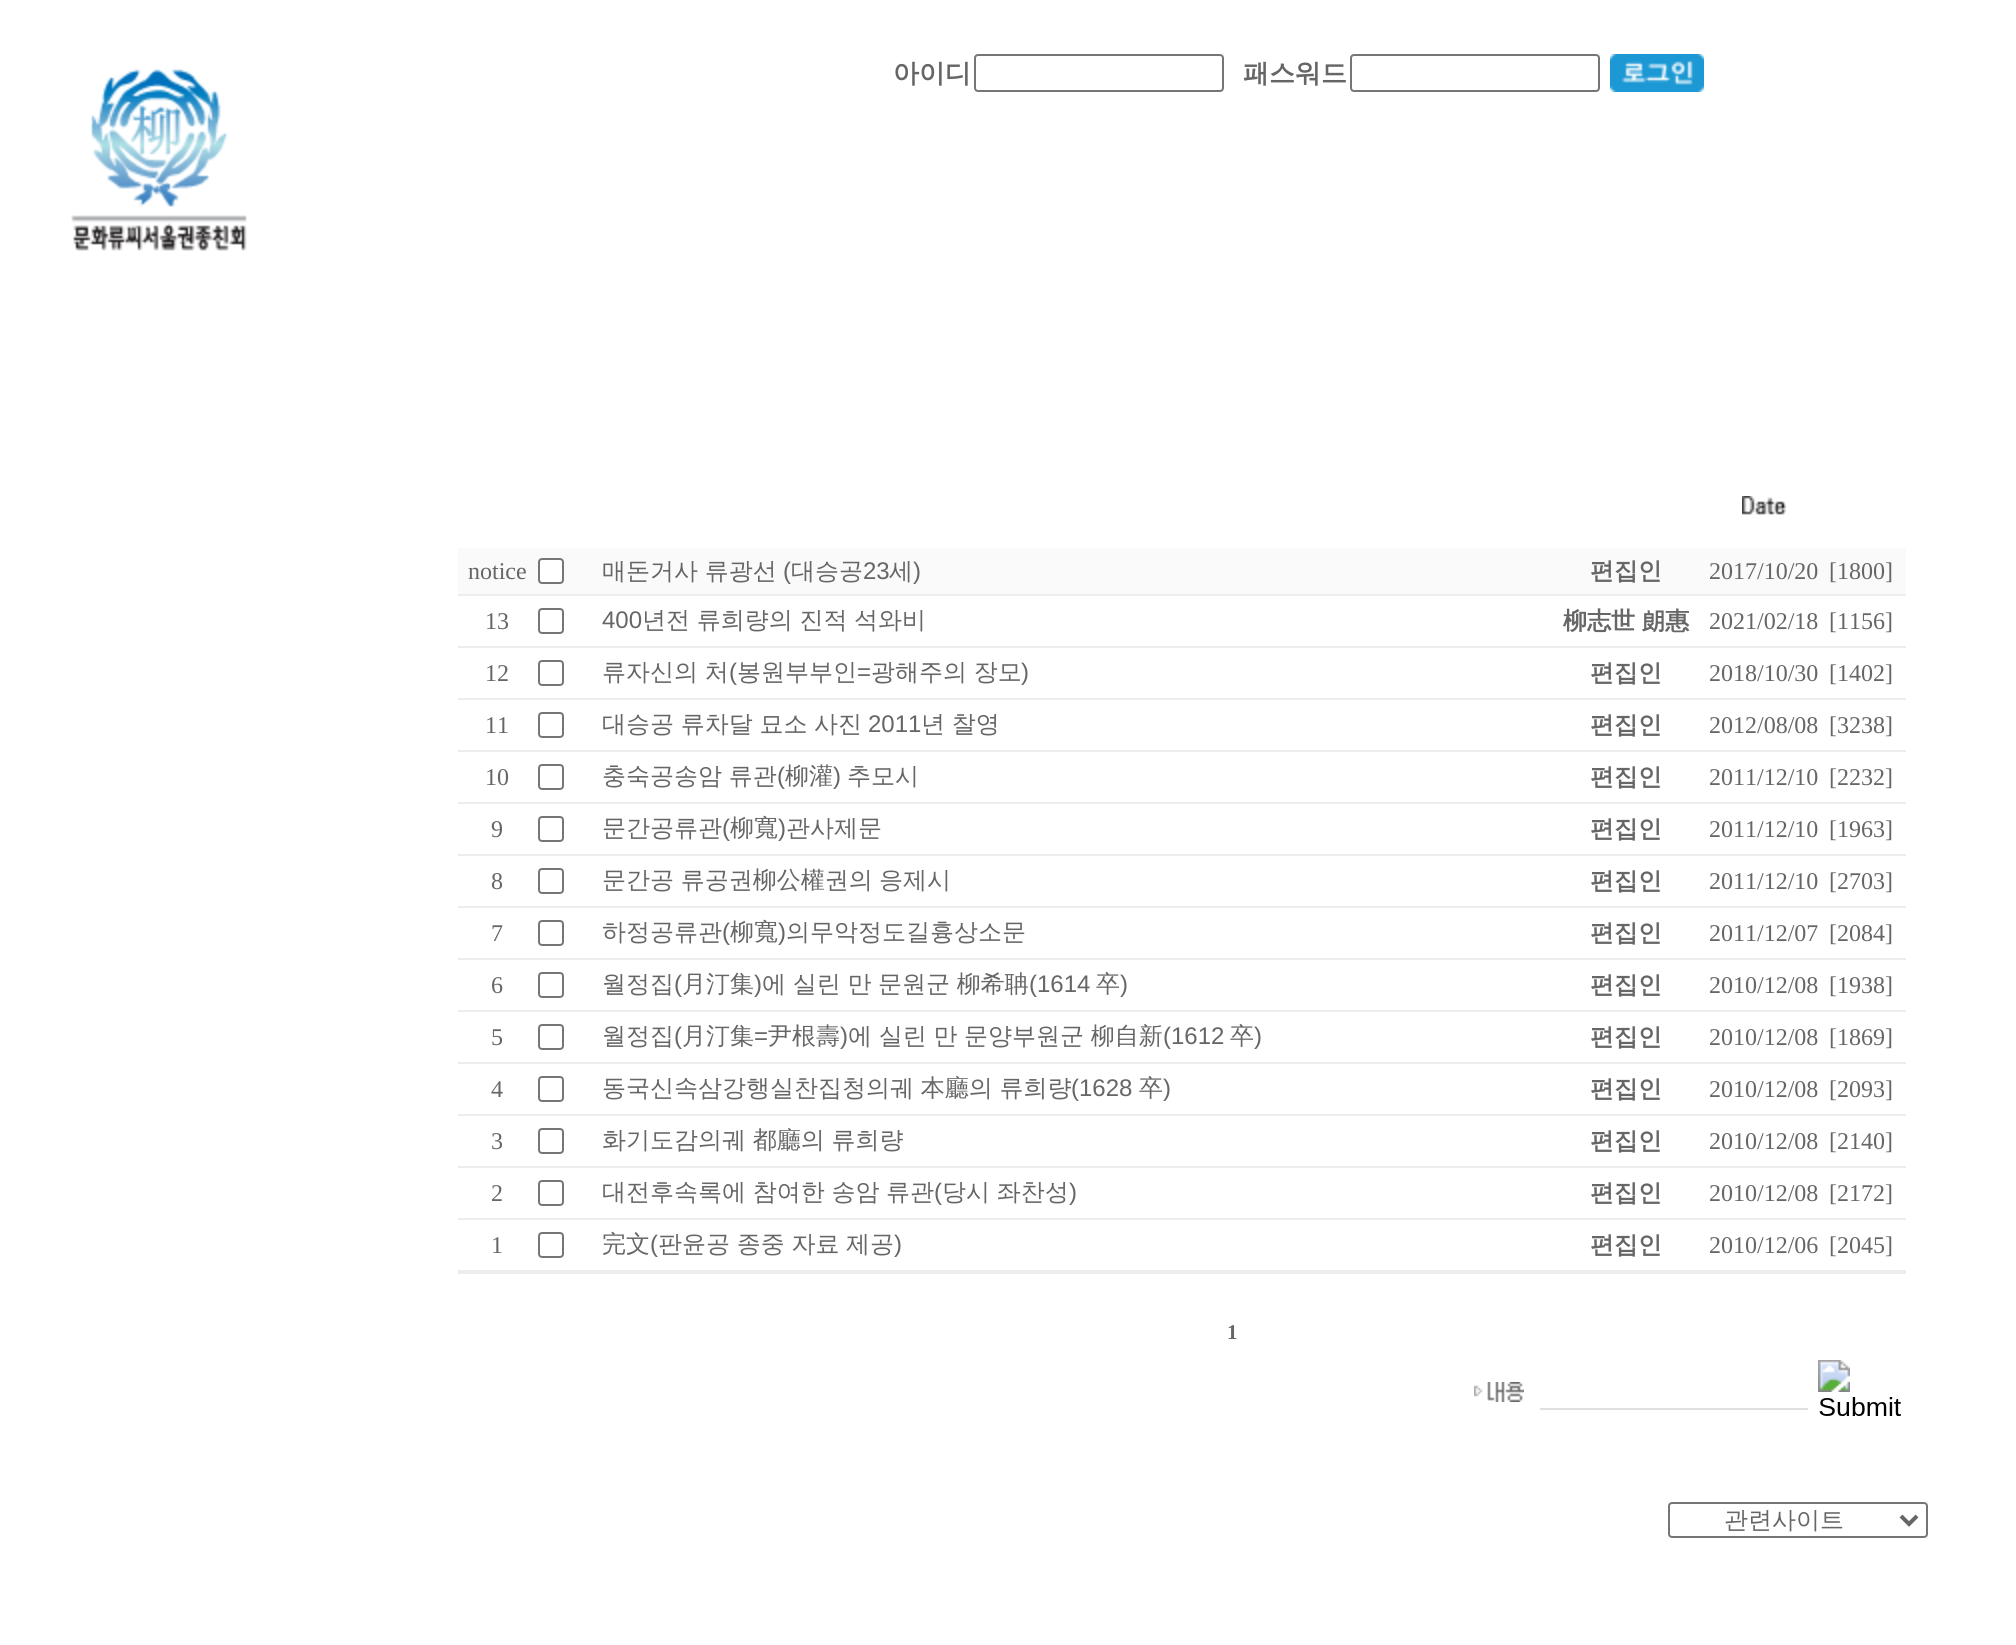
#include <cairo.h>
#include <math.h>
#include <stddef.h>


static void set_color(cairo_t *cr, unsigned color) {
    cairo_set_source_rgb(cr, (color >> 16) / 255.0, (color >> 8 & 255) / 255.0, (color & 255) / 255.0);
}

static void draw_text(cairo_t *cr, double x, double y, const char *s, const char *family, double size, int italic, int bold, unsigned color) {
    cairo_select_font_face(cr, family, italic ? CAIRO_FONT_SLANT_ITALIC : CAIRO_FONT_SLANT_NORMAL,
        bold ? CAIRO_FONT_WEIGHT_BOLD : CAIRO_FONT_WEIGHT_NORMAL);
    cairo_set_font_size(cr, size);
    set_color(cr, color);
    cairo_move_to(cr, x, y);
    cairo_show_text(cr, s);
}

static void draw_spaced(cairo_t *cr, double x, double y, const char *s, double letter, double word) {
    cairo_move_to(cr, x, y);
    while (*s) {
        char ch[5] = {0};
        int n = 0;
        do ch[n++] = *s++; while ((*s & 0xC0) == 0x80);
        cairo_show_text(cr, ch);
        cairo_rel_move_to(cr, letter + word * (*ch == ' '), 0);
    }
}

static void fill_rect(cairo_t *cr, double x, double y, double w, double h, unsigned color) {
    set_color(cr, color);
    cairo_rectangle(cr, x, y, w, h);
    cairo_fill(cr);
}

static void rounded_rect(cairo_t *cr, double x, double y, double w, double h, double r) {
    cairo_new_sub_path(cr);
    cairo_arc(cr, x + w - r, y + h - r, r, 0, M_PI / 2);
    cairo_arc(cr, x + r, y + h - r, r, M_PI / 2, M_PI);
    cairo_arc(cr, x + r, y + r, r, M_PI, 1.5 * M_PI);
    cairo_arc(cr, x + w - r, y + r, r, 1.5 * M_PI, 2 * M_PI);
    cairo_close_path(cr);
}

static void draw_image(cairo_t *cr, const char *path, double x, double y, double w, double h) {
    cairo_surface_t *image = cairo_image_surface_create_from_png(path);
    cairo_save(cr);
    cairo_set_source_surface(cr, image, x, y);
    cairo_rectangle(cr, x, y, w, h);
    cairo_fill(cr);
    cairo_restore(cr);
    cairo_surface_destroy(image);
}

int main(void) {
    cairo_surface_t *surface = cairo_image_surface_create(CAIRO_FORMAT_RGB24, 2016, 1645);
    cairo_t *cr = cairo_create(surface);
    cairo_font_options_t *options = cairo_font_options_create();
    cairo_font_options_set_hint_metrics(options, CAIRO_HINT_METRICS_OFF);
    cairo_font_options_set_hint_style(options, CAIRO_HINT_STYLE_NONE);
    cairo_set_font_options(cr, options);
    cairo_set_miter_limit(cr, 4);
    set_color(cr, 0xFFFFFF);
    cairo_paint(cr);
    draw_image(cr, "assets/img1.png", 71, 69, 176, 182);
    draw_text(cr, 893, 82, "아이디", "WenQuanYi Zen Hei", 26, 0, 1, 0x666666);
    rounded_rect(cr, 975, 55, 248, 36, 3);
    set_color(cr, 0x767676);
    cairo_stroke(cr);
    draw_text(cr, 1243, 82, "패스워드", "WenQuanYi Zen Hei", 26, 0, 1, 0x666666);
    rounded_rect(cr, 1351, 55, 248, 36, 3);
    set_color(cr, 0x767676);
    cairo_stroke(cr);
    draw_image(cr, "assets/img2.png", 1610, 54, 94, 38);
    draw_image(cr, "assets/img3.png", 1742, 496, 44, 19);
    fill_rect(cr, 458, 548, 1448, 46, 0xFAFAFA);
    draw_text(cr, 468, 579, "notice", "Liberation Serif", 24, 0, 0, 0x666666);
    set_color(cr, 0xFFFFFF);
    rounded_rect(cr, 539, 559, 24, 24, 3);
    cairo_fill_preserve(cr);
    set_color(cr, 0x767676);
    cairo_stroke(cr);
    cairo_select_font_face(cr, "WenQuanYi Zen Hei Medium", CAIRO_FONT_SLANT_NORMAL, CAIRO_FONT_WEIGHT_NORMAL);
    set_color(cr, 0x666666);
    draw_spaced(cr, 602, 579, "매돈거사 류광선", 0, -0.5);
    draw_text(cr, 783, 579, "(", "Liberation Sans", 24, 0, 0, 0x666666);
    draw_text(cr, 791, 579, "대승공", "WenQuanYi Zen Hei Medium", 24, 0, 0, 0x666666);
    draw_text(cr, 863, 579, "23", "Liberation Sans", 24, 0, 0, 0x666666);
    draw_text(cr, 889, 579, "세", "WenQuanYi Zen Hei Medium", 24, 0, 0, 0x666666);
    draw_text(cr, 913, 579, ")", "Liberation Sans", 24, 0, 0, 0x666666);
    draw_text(cr, 1590, 579, "편집인", "WenQuanYi Zen Hei", 24, 0, 1, 0x666666);
    draw_text(cr, 1709, 579, "2017/10/20", "Liberation Serif", 24, 0, 0, 0x666666);
    draw_text(cr, 1829, 579, "[1800]", "Liberation Serif", 24, 0, 0, 0x666666);
    fill_rect(cr, 458, 594, 1448, 2, 0xEDEDED);
    draw_text(cr, 485, 629, "13", "Liberation Serif", 24, 0, 0, 0x666666);
    rounded_rect(cr, 539, 609, 24, 24, 3);
    set_color(cr, 0x767676);
    cairo_stroke(cr);
    draw_text(cr, 602, 628, "400", "Liberation Sans", 24, 0, 0, 0x666666);
    cairo_select_font_face(cr, "WenQuanYi Zen Hei Medium", CAIRO_FONT_SLANT_NORMAL, CAIRO_FONT_WEIGHT_NORMAL);
    draw_spaced(cr, 642, 628, "년전 류희량의 진적 석와비", 0, -0.5);
    cairo_select_font_face(cr, "WenQuanYi Zen Hei", CAIRO_FONT_SLANT_NORMAL, CAIRO_FONT_WEIGHT_BOLD);
    draw_spaced(cr, 1563, 629, "柳志世 朗惠", 0, -1);
    draw_text(cr, 1709, 629, "2021/02/18", "Liberation Serif", 24, 0, 0, 0x666666);
    draw_text(cr, 1829, 629, "[1156]", "Liberation Serif", 24, 0, 0, 0x666666);
    fill_rect(cr, 458, 646, 1448, 2, 0xEDEDED);
    draw_text(cr, 485, 681, "12", "Liberation Serif", 24, 0, 0, 0x666666);
    rounded_rect(cr, 539, 661, 24, 24, 3);
    set_color(cr, 0x767676);
    cairo_stroke(cr);
    cairo_select_font_face(cr, "WenQuanYi Zen Hei Medium", CAIRO_FONT_SLANT_NORMAL, CAIRO_FONT_WEIGHT_NORMAL);
    set_color(cr, 0x666666);
    draw_spaced(cr, 602, 680, "류자신의 처", 0, -0.5);
    draw_text(cr, 729, 680, "(", "Liberation Sans", 24, 0, 0, 0x666666);
    draw_text(cr, 737, 680, "봉원부부인", "WenQuanYi Zen Hei Medium", 24, 0, 0, 0x666666);
    draw_text(cr, 857, 680, "=", "Liberation Sans", 24, 0, 0, 0x666666);
    cairo_select_font_face(cr, "WenQuanYi Zen Hei Medium", CAIRO_FONT_SLANT_NORMAL, CAIRO_FONT_WEIGHT_NORMAL);
    draw_spaced(cr, 871, 680, "광해주의 장모", 0, -0.5);
    draw_text(cr, 1021, 680, ")", "Liberation Sans", 24, 0, 0, 0x666666);
    draw_text(cr, 1590, 681, "편집인", "WenQuanYi Zen Hei", 24, 0, 1, 0x666666);
    draw_text(cr, 1709, 681, "2018/10/30", "Liberation Serif", 24, 0, 0, 0x666666);
    draw_text(cr, 1829, 681, "[1402]", "Liberation Serif", 24, 0, 0, 0x666666);
    fill_rect(cr, 458, 698, 1448, 2, 0xEDEDED);
    draw_text(cr, 485, 733, "11", "Liberation Serif", 24, 0, 0, 0x666666);
    rounded_rect(cr, 539, 713, 24, 24, 3);
    set_color(cr, 0x767676);
    cairo_stroke(cr);
    cairo_select_font_face(cr, "WenQuanYi Zen Hei Medium", CAIRO_FONT_SLANT_NORMAL, CAIRO_FONT_WEIGHT_NORMAL);
    set_color(cr, 0x666666);
    draw_spaced(cr, 602, 732, "대승공 류차달 묘소 사진", 0, -0.5);
    draw_text(cr, 868, 732, "2011", "Liberation Sans", 24, 0, 0, 0x666666);
    cairo_select_font_face(cr, "WenQuanYi Zen Hei Medium", CAIRO_FONT_SLANT_NORMAL, CAIRO_FONT_WEIGHT_NORMAL);
    draw_spaced(cr, 921, 732, "년 찰영", 0, -0.5);
    draw_text(cr, 1590, 733, "편집인", "WenQuanYi Zen Hei", 24, 0, 1, 0x666666);
    draw_text(cr, 1709, 733, "2012/08/08", "Liberation Serif", 24, 0, 0, 0x666666);
    draw_text(cr, 1829, 733, "[3238]", "Liberation Serif", 24, 0, 0, 0x666666);
    fill_rect(cr, 458, 750, 1448, 2, 0xEDEDED);
    draw_text(cr, 485, 785, "10", "Liberation Serif", 24, 0, 0, 0x666666);
    rounded_rect(cr, 539, 765, 24, 24, 3);
    set_color(cr, 0x767676);
    cairo_stroke(cr);
    cairo_select_font_face(cr, "WenQuanYi Zen Hei Medium", CAIRO_FONT_SLANT_NORMAL, CAIRO_FONT_WEIGHT_NORMAL);
    set_color(cr, 0x666666);
    draw_spaced(cr, 602, 784, "충숙공송암 류관", 0, -0.5);
    draw_text(cr, 777, 784, "(", "Liberation Sans", 24, 0, 0, 0x666666);
    draw_text(cr, 785, 784, "柳灌", "WenQuanYi Zen Hei Medium", 24, 0, 0, 0x666666);
    draw_text(cr, 833, 784, ")", "Liberation Sans", 24, 0, 0, 0x666666);
    draw_text(cr, 847, 784, "추모시", "WenQuanYi Zen Hei Medium", 24, 0, 0, 0x666666);
    draw_text(cr, 1590, 785, "편집인", "WenQuanYi Zen Hei", 24, 0, 1, 0x666666);
    draw_text(cr, 1709, 785, "2011/12/10", "Liberation Serif", 24, 0, 0, 0x666666);
    draw_text(cr, 1829, 785, "[2232]", "Liberation Serif", 24, 0, 0, 0x666666);
    fill_rect(cr, 458, 802, 1448, 2, 0xEDEDED);
    draw_text(cr, 491, 837, "9", "Liberation Serif", 24, 0, 0, 0x666666);
    rounded_rect(cr, 539, 817, 24, 24, 3);
    set_color(cr, 0x767676);
    cairo_stroke(cr);
    draw_text(cr, 602, 836, "문간공류관", "WenQuanYi Zen Hei Medium", 24, 0, 0, 0x666666);
    draw_text(cr, 722, 836, "(", "Liberation Sans", 24, 0, 0, 0x666666);
    draw_text(cr, 730, 836, "柳寬", "WenQuanYi Zen Hei Medium", 24, 0, 0, 0x666666);
    draw_text(cr, 778, 836, ")", "Liberation Sans", 24, 0, 0, 0x666666);
    draw_text(cr, 786, 836, "관사제문", "WenQuanYi Zen Hei Medium", 24, 0, 0, 0x666666);
    draw_text(cr, 1590, 837, "편집인", "WenQuanYi Zen Hei", 24, 0, 1, 0x666666);
    draw_text(cr, 1709, 837, "2011/12/10", "Liberation Serif", 24, 0, 0, 0x666666);
    draw_text(cr, 1829, 837, "[1963]", "Liberation Serif", 24, 0, 0, 0x666666);
    fill_rect(cr, 458, 854, 1448, 2, 0xEDEDED);
    draw_text(cr, 491, 889, "8", "Liberation Serif", 24, 0, 0, 0x666666);
    rounded_rect(cr, 539, 869, 24, 24, 3);
    set_color(cr, 0x767676);
    cairo_stroke(cr);
    cairo_select_font_face(cr, "WenQuanYi Zen Hei Medium", CAIRO_FONT_SLANT_NORMAL, CAIRO_FONT_WEIGHT_NORMAL);
    set_color(cr, 0x666666);
    draw_spaced(cr, 602, 888, "문간공 류공권柳公權권의", 0, -0.5);
    draw_text(cr, 879, 888, "응제시", "WenQuanYi Zen Hei Medium", 24, 0, 0, 0x666666);
    draw_text(cr, 1590, 889, "편집인", "WenQuanYi Zen Hei", 24, 0, 1, 0x666666);
    draw_text(cr, 1709, 889, "2011/12/10", "Liberation Serif", 24, 0, 0, 0x666666);
    draw_text(cr, 1829, 889, "[2703]", "Liberation Serif", 24, 0, 0, 0x666666);
    fill_rect(cr, 458, 906, 1448, 2, 0xEDEDED);
    draw_text(cr, 491, 941, "7", "Liberation Serif", 24, 0, 0, 0x666666);
    rounded_rect(cr, 539, 921, 24, 24, 3);
    set_color(cr, 0x767676);
    cairo_stroke(cr);
    draw_text(cr, 602, 940, "하정공류관", "WenQuanYi Zen Hei Medium", 24, 0, 0, 0x666666);
    draw_text(cr, 722, 940, "(", "Liberation Sans", 24, 0, 0, 0x666666);
    draw_text(cr, 730, 940, "柳寬", "WenQuanYi Zen Hei Medium", 24, 0, 0, 0x666666);
    draw_text(cr, 778, 940, ")", "Liberation Sans", 24, 0, 0, 0x666666);
    draw_text(cr, 786, 940, "의무악정도길흉상소문", "WenQuanYi Zen Hei Medium", 24, 0, 0, 0x666666);
    draw_text(cr, 1590, 941, "편집인", "WenQuanYi Zen Hei", 24, 0, 1, 0x666666);
    draw_text(cr, 1709, 941, "2011/12/07", "Liberation Serif", 24, 0, 0, 0x666666);
    draw_text(cr, 1829, 941, "[2084]", "Liberation Serif", 24, 0, 0, 0x666666);
    fill_rect(cr, 458, 958, 1448, 2, 0xEDEDED);
    draw_text(cr, 491, 993, "6", "Liberation Serif", 24, 0, 0, 0x666666);
    rounded_rect(cr, 539, 973, 24, 24, 3);
    set_color(cr, 0x767676);
    cairo_stroke(cr);
    draw_text(cr, 602, 992, "월정집", "WenQuanYi Zen Hei Medium", 24, 0, 0, 0x666666);
    draw_text(cr, 674, 992, "(", "Liberation Sans", 24, 0, 0, 0x666666);
    draw_text(cr, 682, 992, "月汀集", "WenQuanYi Zen Hei Medium", 24, 0, 0, 0x666666);
    draw_text(cr, 754, 992, ")", "Liberation Sans", 24, 0, 0, 0x666666);
    cairo_select_font_face(cr, "WenQuanYi Zen Hei Medium", CAIRO_FONT_SLANT_NORMAL, CAIRO_FONT_WEIGHT_NORMAL);
    draw_spaced(cr, 762, 992, "에 실린 만 문원군 柳希聃", 0, -0.5);
    draw_text(cr, 1029, 992, "(1614", "Liberation Sans", 24, 0, 0, 0x666666);
    draw_text(cr, 1096, 992, "卒", "WenQuanYi Zen Hei Medium", 24, 0, 0, 0x666666);
    draw_text(cr, 1120, 992, ")", "Liberation Sans", 24, 0, 0, 0x666666);
    draw_text(cr, 1590, 993, "편집인", "WenQuanYi Zen Hei", 24, 0, 1, 0x666666);
    draw_text(cr, 1709, 993, "2010/12/08", "Liberation Serif", 24, 0, 0, 0x666666);
    draw_text(cr, 1829, 993, "[1938]", "Liberation Serif", 24, 0, 0, 0x666666);
    fill_rect(cr, 458, 1010, 1448, 2, 0xEDEDED);
    draw_text(cr, 491, 1045, "5", "Liberation Serif", 24, 0, 0, 0x666666);
    rounded_rect(cr, 539, 1025, 24, 24, 3);
    set_color(cr, 0x767676);
    cairo_stroke(cr);
    draw_text(cr, 602, 1044, "월정집", "WenQuanYi Zen Hei Medium", 24, 0, 0, 0x666666);
    draw_text(cr, 674, 1044, "(", "Liberation Sans", 24, 0, 0, 0x666666);
    draw_text(cr, 682, 1044, "月汀集", "WenQuanYi Zen Hei Medium", 24, 0, 0, 0x666666);
    draw_text(cr, 754, 1044, "=", "Liberation Sans", 24, 0, 0, 0x666666);
    draw_text(cr, 768, 1044, "尹根壽", "WenQuanYi Zen Hei Medium", 24, 0, 0, 0x666666);
    draw_text(cr, 840, 1044, ")", "Liberation Sans", 24, 0, 0, 0x666666);
    cairo_select_font_face(cr, "WenQuanYi Zen Hei Medium", CAIRO_FONT_SLANT_NORMAL, CAIRO_FONT_WEIGHT_NORMAL);
    draw_spaced(cr, 848, 1044, "에 실린 만 문양부원군 柳自新", 0, -0.5);
    draw_text(cr, 1163, 1044, "(1612", "Liberation Sans", 24, 0, 0, 0x666666);
    draw_text(cr, 1230, 1044, "卒", "WenQuanYi Zen Hei Medium", 24, 0, 0, 0x666666);
    draw_text(cr, 1254, 1044, ")", "Liberation Sans", 24, 0, 0, 0x666666);
    draw_text(cr, 1590, 1045, "편집인", "WenQuanYi Zen Hei", 24, 0, 1, 0x666666);
    draw_text(cr, 1709, 1045, "2010/12/08", "Liberation Serif", 24, 0, 0, 0x666666);
    draw_text(cr, 1829, 1045, "[1869]", "Liberation Serif", 24, 0, 0, 0x666666);
    fill_rect(cr, 458, 1062, 1448, 2, 0xEDEDED);
    draw_text(cr, 491, 1097, "4", "Liberation Serif", 24, 0, 0, 0x666666);
    rounded_rect(cr, 539, 1077, 24, 24, 3);
    set_color(cr, 0x767676);
    cairo_stroke(cr);
    cairo_select_font_face(cr, "WenQuanYi Zen Hei Medium", CAIRO_FONT_SLANT_NORMAL, CAIRO_FONT_WEIGHT_NORMAL);
    set_color(cr, 0x666666);
    draw_spaced(cr, 602, 1096, "동국신속삼강행실찬집청의궤 本廳의 류희량", 0, -0.5);
    draw_text(cr, 1071, 1096, "(1628", "Liberation Sans", 24, 0, 0, 0x666666);
    draw_text(cr, 1139, 1096, "卒", "WenQuanYi Zen Hei Medium", 24, 0, 0, 0x666666);
    draw_text(cr, 1163, 1096, ")", "Liberation Sans", 24, 0, 0, 0x666666);
    draw_text(cr, 1590, 1097, "편집인", "WenQuanYi Zen Hei", 24, 0, 1, 0x666666);
    draw_text(cr, 1709, 1097, "2010/12/08", "Liberation Serif", 24, 0, 0, 0x666666);
    draw_text(cr, 1829, 1097, "[2093]", "Liberation Serif", 24, 0, 0, 0x666666);
    fill_rect(cr, 458, 1114, 1448, 2, 0xEDEDED);
    draw_text(cr, 491, 1149, "3", "Liberation Serif", 24, 0, 0, 0x666666);
    rounded_rect(cr, 539, 1129, 24, 24, 3);
    set_color(cr, 0x767676);
    cairo_stroke(cr);
    cairo_select_font_face(cr, "WenQuanYi Zen Hei Medium", CAIRO_FONT_SLANT_NORMAL, CAIRO_FONT_WEIGHT_NORMAL);
    set_color(cr, 0x666666);
    draw_spaced(cr, 602, 1148, "화기도감의궤 都廳의 류희량", 0, -0.5);
    draw_text(cr, 1590, 1149, "편집인", "WenQuanYi Zen Hei", 24, 0, 1, 0x666666);
    draw_text(cr, 1709, 1149, "2010/12/08", "Liberation Serif", 24, 0, 0, 0x666666);
    draw_text(cr, 1829, 1149, "[2140]", "Liberation Serif", 24, 0, 0, 0x666666);
    fill_rect(cr, 458, 1166, 1448, 2, 0xEDEDED);
    draw_text(cr, 491, 1201, "2", "Liberation Serif", 24, 0, 0, 0x666666);
    rounded_rect(cr, 539, 1181, 24, 24, 3);
    set_color(cr, 0x767676);
    cairo_stroke(cr);
    cairo_select_font_face(cr, "WenQuanYi Zen Hei Medium", CAIRO_FONT_SLANT_NORMAL, CAIRO_FONT_WEIGHT_NORMAL);
    set_color(cr, 0x666666);
    draw_spaced(cr, 602, 1200, "대전후속록에 참여한 송암 류관", 0, -0.5);
    draw_text(cr, 934, 1200, "(", "Liberation Sans", 24, 0, 0, 0x666666);
    cairo_select_font_face(cr, "WenQuanYi Zen Hei Medium", CAIRO_FONT_SLANT_NORMAL, CAIRO_FONT_WEIGHT_NORMAL);
    draw_spaced(cr, 942, 1200, "당시 좌찬성", 0, -0.5);
    draw_text(cr, 1069, 1200, ")", "Liberation Sans", 24, 0, 0, 0x666666);
    draw_text(cr, 1590, 1201, "편집인", "WenQuanYi Zen Hei", 24, 0, 1, 0x666666);
    draw_text(cr, 1709, 1201, "2010/12/08", "Liberation Serif", 24, 0, 0, 0x666666);
    draw_text(cr, 1829, 1201, "[2172]", "Liberation Serif", 24, 0, 0, 0x666666);
    fill_rect(cr, 458, 1218, 1448, 2, 0xEDEDED);
    draw_text(cr, 491, 1253, "1", "Liberation Serif", 24, 0, 0, 0x666666);
    rounded_rect(cr, 539, 1233, 24, 24, 3);
    set_color(cr, 0x767676);
    cairo_stroke(cr);
    draw_text(cr, 602, 1252, "完文", "WenQuanYi Zen Hei Medium", 24, 0, 0, 0x666666);
    draw_text(cr, 650, 1252, "(", "Liberation Sans", 24, 0, 0, 0x666666);
    cairo_select_font_face(cr, "WenQuanYi Zen Hei Medium", CAIRO_FONT_SLANT_NORMAL, CAIRO_FONT_WEIGHT_NORMAL);
    draw_spaced(cr, 658, 1252, "판윤공 종중 자료 제공", 0, -0.5);
    draw_text(cr, 894, 1252, ")", "Liberation Sans", 24, 0, 0, 0x666666);
    draw_text(cr, 1590, 1253, "편집인", "WenQuanYi Zen Hei", 24, 0, 1, 0x666666);
    draw_text(cr, 1709, 1253, "2010/12/06", "Liberation Serif", 24, 0, 0, 0x666666);
    draw_text(cr, 1829, 1253, "[2045]", "Liberation Serif", 24, 0, 0, 0x666666);
    fill_rect(cr, 458, 1270, 1448, 4, 0xEDEDED);
    draw_text(cr, 1227, 1339, "1", "Liberation Serif", 21, 0, 1, 0x666666);
    draw_image(cr, "assets/img4.png", 1474, 1382, 50, 20);
    fill_rect(cr, 1538, 1408, 270, 2, 0xE0E0E0);
    fill_rect(cr, 1538, 1408, 2, 2, 0xFFFFFF);
    draw_image(cr, "assets/img5.png", 1818, 1360, 83, 56);
    rounded_rect(cr, 1669, 1503, 258, 34, 3);
    set_color(cr, 0x767676);
    cairo_stroke(cr);
    cairo_new_path(cr);
    cairo_move_to(cr, 1901, 1516);
    cairo_line_to(cr, 1909, 1524);
    cairo_line_to(cr, 1917, 1516);
    set_color(cr, 0x666666);
    cairo_set_line_width(cr, 4);
    cairo_stroke(cr);
    draw_text(cr, 1724, 1528, "관련사이트", "WenQuanYi Zen Hei Medium", 24, 0, 0, 0x666666);
    cairo_surface_write_to_png(surface, "output.png");
    cairo_font_options_destroy(options);
    cairo_destroy(cr);
    cairo_surface_destroy(surface);
    return 0;
}
